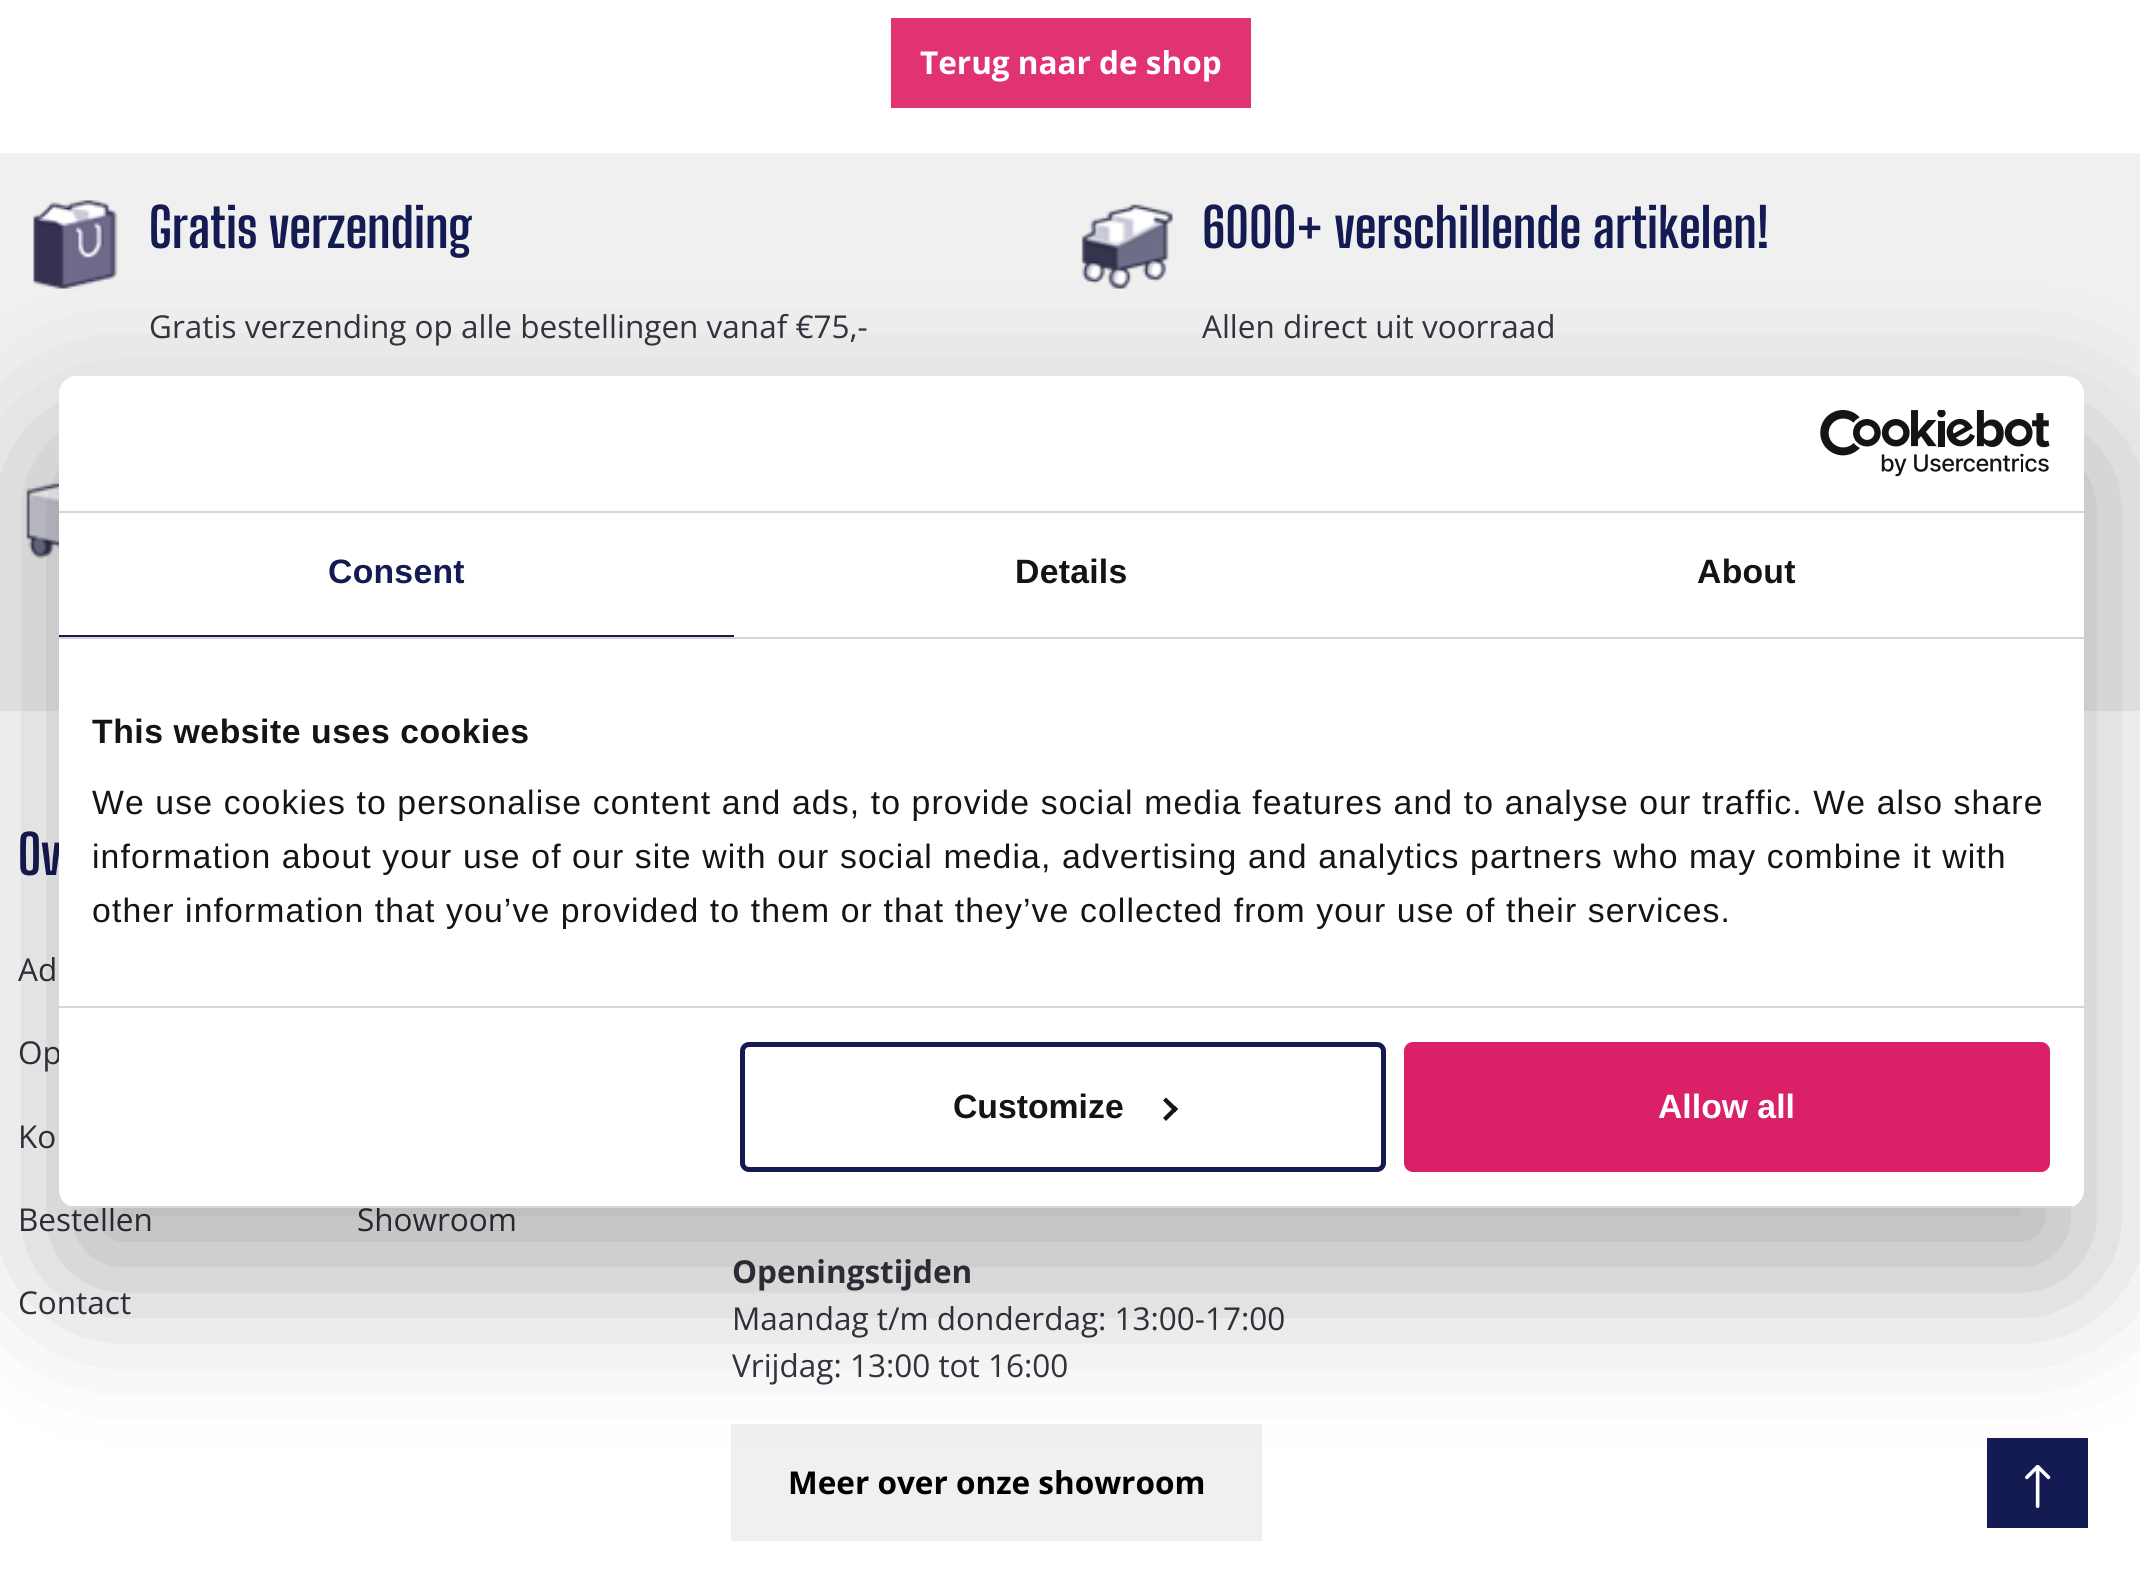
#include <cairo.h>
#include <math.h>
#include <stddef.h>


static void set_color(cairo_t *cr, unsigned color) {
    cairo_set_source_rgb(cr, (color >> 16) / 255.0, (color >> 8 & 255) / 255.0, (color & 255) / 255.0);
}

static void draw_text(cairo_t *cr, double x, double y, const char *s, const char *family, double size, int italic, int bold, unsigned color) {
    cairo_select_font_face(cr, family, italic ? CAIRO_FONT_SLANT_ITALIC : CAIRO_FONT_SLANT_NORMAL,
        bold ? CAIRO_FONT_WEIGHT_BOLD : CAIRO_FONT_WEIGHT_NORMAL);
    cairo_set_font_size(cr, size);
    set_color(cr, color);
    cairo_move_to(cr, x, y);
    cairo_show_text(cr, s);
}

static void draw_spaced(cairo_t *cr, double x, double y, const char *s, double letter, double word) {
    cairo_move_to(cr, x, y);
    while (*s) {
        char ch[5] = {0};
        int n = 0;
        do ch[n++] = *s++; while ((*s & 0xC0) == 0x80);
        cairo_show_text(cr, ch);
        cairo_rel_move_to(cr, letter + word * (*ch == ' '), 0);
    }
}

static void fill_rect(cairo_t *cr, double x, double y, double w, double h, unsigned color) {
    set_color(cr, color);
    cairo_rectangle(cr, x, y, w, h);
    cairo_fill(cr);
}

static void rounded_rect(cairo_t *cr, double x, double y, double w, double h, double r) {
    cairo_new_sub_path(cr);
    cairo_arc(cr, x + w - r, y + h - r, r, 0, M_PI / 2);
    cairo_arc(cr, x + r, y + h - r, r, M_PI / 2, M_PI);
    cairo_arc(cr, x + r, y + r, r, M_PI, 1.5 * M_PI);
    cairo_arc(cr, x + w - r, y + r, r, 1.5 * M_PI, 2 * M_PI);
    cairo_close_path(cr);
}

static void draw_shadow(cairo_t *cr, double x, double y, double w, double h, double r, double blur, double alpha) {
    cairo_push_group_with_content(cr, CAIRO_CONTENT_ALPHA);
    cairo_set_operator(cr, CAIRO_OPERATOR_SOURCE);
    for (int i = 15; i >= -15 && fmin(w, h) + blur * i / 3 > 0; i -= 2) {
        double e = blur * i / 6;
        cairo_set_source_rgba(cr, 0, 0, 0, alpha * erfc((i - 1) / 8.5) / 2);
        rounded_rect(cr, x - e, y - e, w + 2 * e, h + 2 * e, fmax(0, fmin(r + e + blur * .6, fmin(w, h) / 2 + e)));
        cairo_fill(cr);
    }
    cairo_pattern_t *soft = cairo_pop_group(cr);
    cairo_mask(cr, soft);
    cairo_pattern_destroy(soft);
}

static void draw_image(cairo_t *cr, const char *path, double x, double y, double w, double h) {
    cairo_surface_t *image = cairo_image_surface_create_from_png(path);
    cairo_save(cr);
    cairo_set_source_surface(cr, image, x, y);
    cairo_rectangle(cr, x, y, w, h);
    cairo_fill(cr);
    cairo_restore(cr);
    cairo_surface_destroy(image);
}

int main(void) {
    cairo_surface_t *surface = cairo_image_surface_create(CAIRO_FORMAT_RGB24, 2140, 1581);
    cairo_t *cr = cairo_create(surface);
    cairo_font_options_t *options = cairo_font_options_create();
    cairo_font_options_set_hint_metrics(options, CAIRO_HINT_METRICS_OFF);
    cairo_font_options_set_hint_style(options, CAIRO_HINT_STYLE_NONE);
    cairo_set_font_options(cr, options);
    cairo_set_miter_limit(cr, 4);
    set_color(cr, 0xFFFFFF);
    cairo_paint(cr);
    fill_rect(cr, 891, 18, 360, 90, 0xE13374);
    draw_text(cr, 920, 74, "Terug naar de shop", "Open Sans", 31.5, 0, 1, 0xFFFFFF);
    fill_rect(cr, 0, 153, 2140, 558, 0xF0F0F0);
    draw_image(cr, "assets/img1.png", 33, 200, 85, 89);
    draw_text(cr, 149, 248, "Gratis verzending", "Big Shoulders Display", 54, 0, 1, 0x141B53);
    draw_text(cr, 149, 338, "Gratis verzending op alle bestellingen vanaf €75,-", "Open Sans", 31.5, 0, 0, 0x33343E);
    draw_image(cr, "assets/img2.png", 1081, 204, 92, 85);
    draw_text(cr, 1202, 248, "6000+ verschillende artikelen!", "Big Shoulders Display", 54, 0, 1, 0x141B53);
    draw_text(cr, 1202, 338, "Allen direct uit voorraad", "Open Sans", 31.5, 0, 0, 0x33343E);
    draw_image(cr, "assets/img3.png", 26, 483, 33, 76);
    draw_text(cr, 18, 875, "Ov", "Big Shoulders Display", 54, 0, 1, 0x141B53);
    draw_text(cr, 18, 981, "Ad", "Open Sans", 31.5, 0, 0, 0x33343E);
    draw_text(cr, 18, 1064, "Op", "Open Sans", 31.5, 0, 0, 0x33343E);
    draw_text(cr, 18, 1148, "Ko", "Open Sans", 31.5, 0, 0, 0x33343E);
    draw_text(cr, 18, 1231, "Bestellen", "Open Sans", 31.5, 0, 0, 0x33343E);
    draw_text(cr, 357, 1231, "Showroom", "Open Sans", 31.5, 0, 0, 0x33343E);
    draw_text(cr, 18, 1314, "Contact", "Open Sans", 31.5, 0, 0, 0x33343E);
    draw_text(cr, 732, 1283, "Openingstijden", "Open Sans", 31.5, 0, 1, 0x33343E);
    draw_text(cr, 732, 1330, "Maandag t/m donderdag: 13:00-17:00", "Open Sans", 31.5, 0, 0, 0x33343E);
    draw_text(cr, 732, 1377, "Vrijdag: 13:00 tot 16:00", "Open Sans", 31.5, 0, 0, 0x33343E);
    fill_rect(cr, 731, 1424, 531, 117, 0xF0F0F0);
    draw_text(cr, 788, 1494, "Meer over onze showroom", "Open Sans", 31.5, 0, 1, 0x000000);
    fill_rect(cr, 1987, 1438, 101, 90, 0x141B53);
    draw_image(cr, "assets/img5.png", 2025, 1465, 26, 43);
    set_color(cr, 0x000000);
    draw_shadow(cr, 59, 448, 2025, 832, 18, 76.5, 0.3);
    set_color(cr, 0xFFFFFF);
    rounded_rect(cr, 59, 376, 2025, 832, 18);
    cairo_fill(cr);
    fill_rect(cr, 59, 511, 2025, 2, 0xD6D6D6);
    draw_image(cr, "assets/img4.png", 1820, 410, 230, 67);
    fill_rect(cr, 59, 637, 2025, 2, 0xD6D6D6);
    fill_rect(cr, 59, 635, 675, 2, 0x141B53);
    cairo_select_font_face(cr, "Liberation Sans", CAIRO_FONT_SLANT_NORMAL, CAIRO_FONT_WEIGHT_BOLD);
    cairo_set_font_size(cr, 33.75);
    draw_spaced(cr, 328, 583, "Consent", 0.25, 0);
    set_color(cr, 0x141414);
    draw_spaced(cr, 1015, 583, "Details", 0.25, 0);
    draw_spaced(cr, 1697, 583, "About", 0.25, 0);
    fill_rect(cr, 59, 1006, 2025, 2, 0xD6D6D6);
    set_color(cr, 0x141414);
    draw_spaced(cr, 92, 743, "This website uses cookies", 0.55, 0);
    cairo_select_font_face(cr, "Liberation Sans", CAIRO_FONT_SLANT_NORMAL, CAIRO_FONT_WEIGHT_NORMAL);
    draw_spaced(cr, 92, 814, "We use cookies to personalise content and ads, to provide social media features and to analyse our traffic. We also share", 1.12, 0);
    draw_spaced(cr, 92, 868, "information about your use of our site with our social media, advertising and analytics partners who may combine it with", 1.12, 0);
    draw_spaced(cr, 92, 922, "other information that you’ve provided to them or that they’ve collected from your use of their services.", 1.12, 0);
    cairo_save(cr);
    rounded_rect(cr, 59, 376, 2025, 832, 18);
    cairo_clip(cr);
    fill_rect(cr, 69, 1206, 2005, 2, 0xD6D6D6);
    cairo_restore(cr);
    rounded_rect(cr, 742.5, 1044.5, 641, 125, 6.5);
    set_color(cr, 0x141B53);
    cairo_set_line_width(cr, 5);
    cairo_stroke(cr);
    draw_text(cr, 953, 1118, "Customize", "Liberation Sans", 33.75, 0, 1, 0x141414);
    cairo_new_path(cr);
    cairo_move_to(cr, 1166, 1097.5);
    cairo_line_to(cr, 1178, 1109);
    cairo_line_to(cr, 1175, 1112.5);
    cairo_line_to(cr, 1163, 1100.5);
    cairo_close_path(cr);
    cairo_fill(cr);
    cairo_new_path(cr);
    cairo_move_to(cr, 1175, 1106);
    cairo_line_to(cr, 1178, 1109);
    cairo_line_to(cr, 1166, 1121);
    cairo_line_to(cr, 1163, 1118);
    cairo_close_path(cr);
    cairo_fill(cr);
    set_color(cr, 0xDA2066);
    rounded_rect(cr, 1406.5, 1044.5, 641, 125, 6.5);
    cairo_fill_preserve(cr);
    cairo_stroke(cr);
    draw_text(cr, 1658, 1118, "Allow all", "Liberation Sans", 33.75, 0, 1, 0xFFFFFF);
    cairo_surface_write_to_png(surface, "output.png");
    cairo_font_options_destroy(options);
    cairo_destroy(cr);
    cairo_surface_destroy(surface);
    return 0;
}
